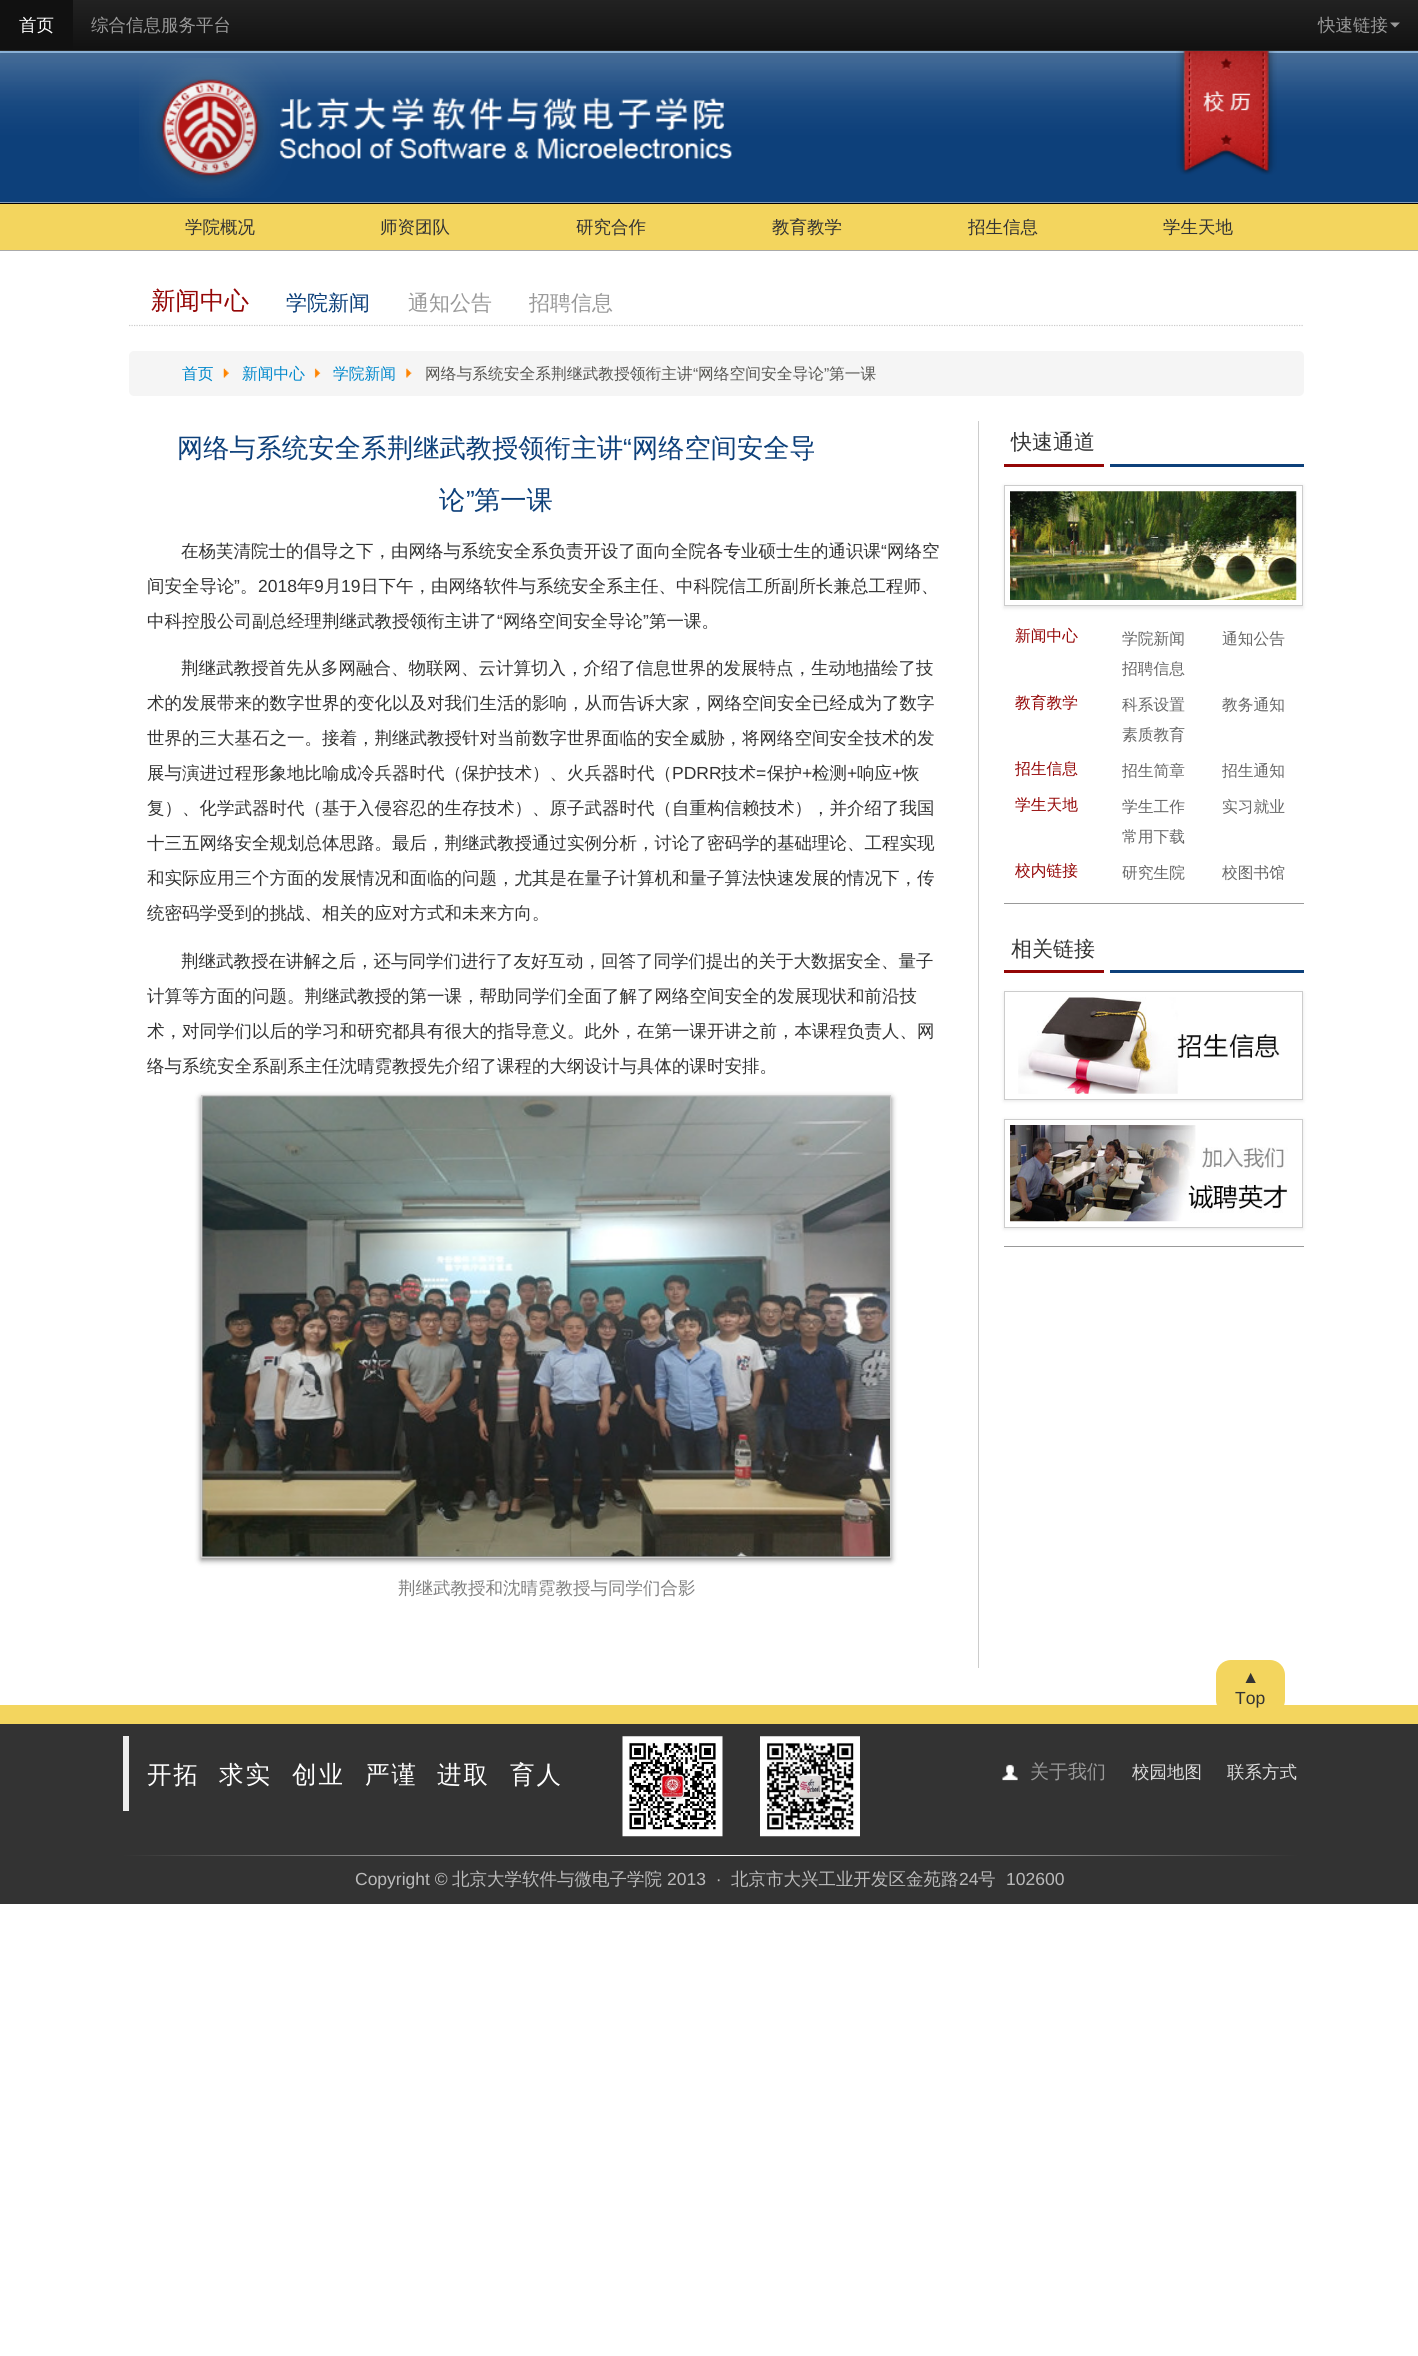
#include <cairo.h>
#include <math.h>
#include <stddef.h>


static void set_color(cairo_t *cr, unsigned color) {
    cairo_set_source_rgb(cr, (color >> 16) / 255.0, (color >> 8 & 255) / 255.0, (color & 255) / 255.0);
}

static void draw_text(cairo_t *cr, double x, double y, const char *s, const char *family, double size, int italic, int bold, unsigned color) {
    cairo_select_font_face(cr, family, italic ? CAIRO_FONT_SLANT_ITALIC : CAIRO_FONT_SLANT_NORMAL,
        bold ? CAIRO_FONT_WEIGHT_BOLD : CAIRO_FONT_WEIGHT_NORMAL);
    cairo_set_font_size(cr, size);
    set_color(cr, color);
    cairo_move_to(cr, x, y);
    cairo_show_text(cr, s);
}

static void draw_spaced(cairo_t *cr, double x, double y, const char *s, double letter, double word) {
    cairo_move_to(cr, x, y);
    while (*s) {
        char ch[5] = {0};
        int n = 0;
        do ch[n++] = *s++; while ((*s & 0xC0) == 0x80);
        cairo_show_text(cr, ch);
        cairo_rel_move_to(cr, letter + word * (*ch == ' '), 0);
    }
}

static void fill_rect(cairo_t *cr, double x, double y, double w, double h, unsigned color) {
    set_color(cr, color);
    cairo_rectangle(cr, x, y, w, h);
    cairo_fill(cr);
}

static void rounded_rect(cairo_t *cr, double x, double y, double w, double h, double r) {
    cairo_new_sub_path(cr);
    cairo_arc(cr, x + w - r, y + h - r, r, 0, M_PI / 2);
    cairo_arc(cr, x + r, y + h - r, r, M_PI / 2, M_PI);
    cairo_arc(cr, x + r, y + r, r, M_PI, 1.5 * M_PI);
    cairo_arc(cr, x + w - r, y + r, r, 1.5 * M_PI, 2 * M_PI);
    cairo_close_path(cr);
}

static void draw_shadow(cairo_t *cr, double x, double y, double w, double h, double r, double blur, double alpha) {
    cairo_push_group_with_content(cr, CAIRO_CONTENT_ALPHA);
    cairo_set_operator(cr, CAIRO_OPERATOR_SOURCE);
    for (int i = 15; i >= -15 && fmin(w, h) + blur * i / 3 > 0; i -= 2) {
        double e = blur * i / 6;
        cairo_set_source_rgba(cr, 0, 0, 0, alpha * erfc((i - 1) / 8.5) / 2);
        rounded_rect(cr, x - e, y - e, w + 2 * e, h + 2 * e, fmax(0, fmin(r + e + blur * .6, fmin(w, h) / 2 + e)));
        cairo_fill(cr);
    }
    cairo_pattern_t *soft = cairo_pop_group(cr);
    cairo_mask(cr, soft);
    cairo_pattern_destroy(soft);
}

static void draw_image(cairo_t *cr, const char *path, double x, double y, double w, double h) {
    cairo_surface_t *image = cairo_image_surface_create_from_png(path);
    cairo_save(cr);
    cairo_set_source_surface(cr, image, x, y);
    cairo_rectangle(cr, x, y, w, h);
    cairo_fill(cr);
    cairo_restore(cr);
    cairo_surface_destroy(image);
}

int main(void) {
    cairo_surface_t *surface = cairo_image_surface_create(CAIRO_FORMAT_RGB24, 1418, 2356);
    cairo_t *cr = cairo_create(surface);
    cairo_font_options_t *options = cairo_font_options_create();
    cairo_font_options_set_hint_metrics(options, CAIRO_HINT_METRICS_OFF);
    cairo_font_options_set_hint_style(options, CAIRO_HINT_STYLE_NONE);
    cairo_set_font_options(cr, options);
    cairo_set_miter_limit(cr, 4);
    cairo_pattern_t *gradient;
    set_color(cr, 0xFFFFFF);
    cairo_paint(cr);
    draw_image(cr, "assets/img1.png", 0, 53, 1418, 150);
    fill_rect(cr, 0, 51, 1418, 2, 0x92BAE1);
    draw_image(cr, "assets/img2.png", 139, 58, 593, 140);
    draw_image(cr, "assets/img3.png", 1176, 51, 101, 124);
    set_color(cr, 0x000000);
    draw_shadow(cr, 0, 1, 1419, 52, 0, 6, 0.1);
    gradient = cairo_pattern_create_linear(709, 0, 709, 50);
    cairo_pattern_add_color_stop_rgba(gradient, 0, 0.133, 0.133, 0.133, 1);
    cairo_pattern_add_color_stop_rgba(gradient, 1, 0.067, 0.067, 0.067, 1);
    cairo_set_source(cr, gradient);
    cairo_pattern_destroy(gradient);
    cairo_rectangle(cr, 73, 0, 1345, 50);
    cairo_fill(cr);
    fill_rect(cr, 0, 50, 1418, 1, 0x252525);
    fill_rect(cr, 0, 0, 73, 50, 0x111111);
    draw_text(cr, 19, 31, "首页", "WenQuanYi Zen Hei Medium", 17.5, 0, 0, 0xFFFFFF);
    draw_text(cr, 91, 31, "综合信息服务平台", "WenQuanYi Zen Hei Medium", 17.5, 0, 0, 0x999999);
    draw_text(cr, 1318, 31, "快速链接", "WenQuanYi Zen Hei Medium", 17.5, 0, 0, 0x999999);
    cairo_new_path(cr);
    cairo_move_to(cr, 1390, 22.5);
    cairo_line_to(cr, 1400, 22.5);
    cairo_line_to(cr, 1395, 27.5);
    cairo_close_path(cr);
    cairo_fill(cr);
    fill_rect(cr, 0, 204, 1418, 46, 0xF3D55E);
    fill_rect(cr, 0, 203, 1418, 1, 0x000000);
    fill_rect(cr, 0, 250, 1418, 1, 0xAAAAAA);
    draw_text(cr, 185, 233, "学院概况", "WenQuanYi Zen Hei Medium", 17.5, 0, 0, 0x333333);
    draw_text(cr, 380, 233, "师资团队", "WenQuanYi Zen Hei Medium", 17.5, 0, 0, 0x333333);
    draw_text(cr, 576, 233, "研究合作", "WenQuanYi Zen Hei Medium", 17.5, 0, 0, 0x333333);
    draw_text(cr, 772, 233, "教育教学", "WenQuanYi Zen Hei Medium", 17.5, 0, 0, 0x333333);
    draw_text(cr, 968, 233, "招生信息", "WenQuanYi Zen Hei Medium", 17.5, 0, 0, 0x333333);
    draw_text(cr, 1163, 233, "学生天地", "WenQuanYi Zen Hei Medium", 17.5, 0, 0, 0x333333);
    cairo_new_path(cr);
    cairo_move_to(cr, 129, 325.5);
    cairo_line_to(cr, 1304, 325.5);
    set_color(cr, 0xCCCCCC);
    cairo_set_line_width(cr, 1.2);
    cairo_set_dash(cr, (double[]){1.25, 1.25}, 2, 0);
    cairo_stroke(cr);
    draw_text(cr, 151, 309, "新闻中心", "WenQuanYi Zen Hei Medium", 24.5, 0, 0, 0x940606);
    draw_text(cr, 286, 310, "学院新闻", "WenQuanYi Zen Hei Medium", 21, 0, 0, 0x0D407A);
    draw_text(cr, 408, 310, "通知公告", "WenQuanYi Zen Hei Medium", 21, 0, 0, 0x999999);
    draw_text(cr, 529, 310, "招聘信息", "WenQuanYi Zen Hei Medium", 21, 0, 0, 0x999999);
    set_color(cr, 0xF5F5F5);
    rounded_rect(cr, 129, 351, 1175, 45, 5);
    cairo_fill(cr);
    draw_text(cr, 182, 379, "首页", "WenQuanYi Zen Hei Medium", 15.75, 0, 0, 0x0088CC);
    draw_image(cr, "assets/img4.png", 223, 368, 6, 10);
    draw_text(cr, 242, 379, "新闻中心", "WenQuanYi Zen Hei Medium", 15.75, 0, 0, 0x0088CC);
    draw_image(cr, "assets/img5.png", 314, 368, 7, 10);
    draw_text(cr, 333, 379, "学院新闻", "WenQuanYi Zen Hei Medium", 15.75, 0, 0, 0x0088CC);
    draw_image(cr, "assets/img6.png", 406, 368, 6, 10);
    draw_text(cr, 425, 379, "网络与系统安全系荆继武教授领衔主讲", "WenQuanYi Zen Hei Medium", 15.75, 0, 0, 0x585754);
    draw_text(cr, 693, 379, "“", "Liberation Sans", 15.75, 0, 0, 0x585754);
    draw_text(cr, 698, 379, "网络空间安全导论", "WenQuanYi Zen Hei Medium", 15.75, 0, 0, 0x585754);
    draw_text(cr, 824, 379, "”", "Liberation Sans", 15.75, 0, 0, 0x585754);
    draw_text(cr, 829, 379, "第一课", "WenQuanYi Zen Hei Medium", 15.75, 0, 0, 0x585754);
    fill_rect(cr, 978, 421, 1, 1247, 0xCCCCCC);
    draw_text(cr, 177, 457, "网络与系统安全系荆继武教授领衔主讲", "WenQuanYi Zen Hei Medium", 26.25, 0, 0, 0x0D407A);
    draw_text(cr, 623, 457, "“", "Liberation Sans", 26.25, 0, 0, 0x0D407A);
    draw_text(cr, 632, 457, "网络空间安全导", "WenQuanYi Zen Hei Medium", 26.25, 0, 0, 0x0D407A);
    draw_text(cr, 439, 509, "论", "WenQuanYi Zen Hei Medium", 26.25, 0, 0, 0x0D407A);
    draw_text(cr, 466, 509, "”", "Liberation Sans", 26.25, 0, 0, 0x0D407A);
    draw_text(cr, 474, 509, "第一课", "WenQuanYi Zen Hei Medium", 26.25, 0, 0, 0x0D407A);
    draw_text(cr, 181, 557, "在杨芙清院士的倡导之下，由网络与系统安全系负责开设了面向全院各专业硕士生的通识课", "WenQuanYi Zen Hei Medium", 17.5, 0, 0, 0x333333);
    draw_text(cr, 881, 557, "“", "Liberation Sans", 17.5, 0, 0, 0x333333);
    draw_text(cr, 887, 557, "网络空", "WenQuanYi Zen Hei Medium", 17.5, 0, 0, 0x333333);
    draw_text(cr, 147, 592, "间安全导论", "WenQuanYi Zen Hei Medium", 17.5, 0, 0, 0x333333);
    draw_text(cr, 234, 592, "”", "Liberation Sans", 17.5, 0, 0, 0x333333);
    draw_text(cr, 240, 592, "。", "WenQuanYi Zen Hei Medium", 17.5, 0, 0, 0x333333);
    draw_text(cr, 258, 592, "2018", "Liberation Sans", 17.5, 0, 0, 0x333333);
    draw_text(cr, 297, 592, "年", "WenQuanYi Zen Hei Medium", 17.5, 0, 0, 0x333333);
    draw_text(cr, 314, 592, "9", "Liberation Sans", 17.5, 0, 0, 0x333333);
    draw_text(cr, 324, 592, "月", "WenQuanYi Zen Hei Medium", 17.5, 0, 0, 0x333333);
    draw_text(cr, 341, 592, "19", "Liberation Sans", 17.5, 0, 0, 0x333333);
    draw_text(cr, 361, 592, "日下午，由网络软件与系统安全系主任、中科院信工所副所长兼总工程师、", "WenQuanYi Zen Hei Medium", 17.5, 0, 0, 0x333333);
    draw_text(cr, 147, 627, "中科控股公司副总经理荆继武教授领衔主讲了", "WenQuanYi Zen Hei Medium", 17.5, 0, 0, 0x333333);
    draw_text(cr, 497, 627, "“", "Liberation Sans", 17.5, 0, 0, 0x333333);
    draw_text(cr, 503, 627, "网络空间安全导论", "WenQuanYi Zen Hei Medium", 17.5, 0, 0, 0x333333);
    draw_text(cr, 643, 627, "”", "Liberation Sans", 17.5, 0, 0, 0x333333);
    draw_text(cr, 649, 627, "第一课。", "WenQuanYi Zen Hei Medium", 17.5, 0, 0, 0x333333);
    draw_text(cr, 181, 674, "荆继武教授首先从多网融合、物联网、云计算切入，介绍了信息世界的发展特点，生动地描绘了技", "WenQuanYi Zen Hei Medium", 17.5, 0, 0, 0x333333);
    draw_text(cr, 147, 709, "术的发展带来的数字世界的变化以及对我们生活的影响，从而告诉大家，网络空间安全已经成为了数字", "WenQuanYi Zen Hei Medium", 17.5, 0, 0, 0x333333);
    draw_text(cr, 147, 744, "世界的三大基石之一。接着，荆继武教授针对当前数字世界面临的安全威胁，将网络空间安全技术的发", "WenQuanYi Zen Hei Medium", 17.5, 0, 0, 0x333333);
    draw_text(cr, 147, 779, "展与演进过程形象地比喻成冷兵器时代（保护技术）、火兵器时代（", "WenQuanYi Zen Hei Medium", 17.5, 0, 0, 0x333333);
    draw_text(cr, 672, 779, "PDRR", "Liberation Sans", 17.5, 0, 0, 0x333333);
    draw_text(cr, 721, 779, "技术", "WenQuanYi Zen Hei Medium", 17.5, 0, 0, 0x333333);
    draw_text(cr, 756, 779, "=", "Liberation Sans", 17.5, 0, 0, 0x333333);
    draw_text(cr, 767, 779, "保护", "WenQuanYi Zen Hei Medium", 17.5, 0, 0, 0x333333);
    draw_text(cr, 802, 779, "+", "Liberation Sans", 17.5, 0, 0, 0x333333);
    draw_text(cr, 812, 779, "检测", "WenQuanYi Zen Hei Medium", 17.5, 0, 0, 0x333333);
    draw_text(cr, 847, 779, "+", "Liberation Sans", 17.5, 0, 0, 0x333333);
    draw_text(cr, 857, 779, "响应", "WenQuanYi Zen Hei Medium", 17.5, 0, 0, 0x333333);
    draw_text(cr, 892, 779, "+", "Liberation Sans", 17.5, 0, 0, 0x333333);
    draw_text(cr, 902, 779, "恢", "WenQuanYi Zen Hei Medium", 17.5, 0, 0, 0x333333);
    draw_text(cr, 147, 814, "复）、化学武器时代（基于入侵容忍的生存技术）、原子武器时代（自重构信赖技术），并介绍了我国", "WenQuanYi Zen Hei Medium", 17.5, 0, 0, 0x333333);
    draw_text(cr, 147, 849, "十三五网络安全规划总体思路。最后，荆继武教授通过实例分析，讨论了密码学的基础理论、工程实现", "WenQuanYi Zen Hei Medium", 17.5, 0, 0, 0x333333);
    draw_text(cr, 147, 884, "和实际应用三个方面的发展情况和面临的问题，尤其是在量子计算机和量子算法快速发展的情况下，传", "WenQuanYi Zen Hei Medium", 17.5, 0, 0, 0x333333);
    draw_text(cr, 147, 919, "统密码学受到的挑战、相关的应对方式和未来方向。", "WenQuanYi Zen Hei Medium", 17.5, 0, 0, 0x333333);
    draw_text(cr, 181, 967, "荆继武教授在讲解之后，还与同学们进行了友好互动，回答了同学们提出的关于大数据安全、量子", "WenQuanYi Zen Hei Medium", 17.5, 0, 0, 0x333333);
    draw_text(cr, 147, 1002, "计算等方面的问题。荆继武教授的第一课，帮助同学们全面了解了网络空间安全的发展现状和前沿技", "WenQuanYi Zen Hei Medium", 17.5, 0, 0, 0x333333);
    draw_text(cr, 147, 1037, "术，对同学们以后的学习和研究都具有很大的指导意义。此外，在第一课开讲之前，本课程负责人、网", "WenQuanYi Zen Hei Medium", 17.5, 0, 0, 0x333333);
    draw_text(cr, 147, 1072, "络与系统安全系副系主任沈晴霓教授先介绍了课程的大纲设计与具体的课时安排。", "WenQuanYi Zen Hei Medium", 17.5, 0, 0, 0x333333);
    set_color(cr, 0x000000);
    draw_shadow(cr, 201, 1098, 690, 462, 0, 3, 0.5);
    cairo_rectangle(cr, 201.5, 1095.5, 689, 462);
    set_color(cr, 0xCCCCCC);
    cairo_set_line_width(cr, 1);
    cairo_set_dash(cr, NULL, 0, 0);
    cairo_stroke(cr);
    draw_image(cr, "assets/img7.png", 202, 1096, 688, 461);
    draw_text(cr, 398, 1594, "荆继武教授和沈晴霓教授与同学们合影", "WenQuanYi Zen Hei Medium", 17.5, 0, 0, 0x808080);
    fill_rect(cr, 1004, 903, 300, 1, 0x999999);
    draw_text(cr, 1011, 449, "快速通道", "WenQuanYi Zen Hei Medium", 21, 0, 0, 0x333333);
    fill_rect(cr, 1110, 464, 194, 3, 0x0D407A);
    fill_rect(cr, 1004, 464, 106, 3, 0x940606);
    fill_rect(cr, 1104, 464, 6, 3, 0xFFFFFF);
    set_color(cr, 0x000000);
    draw_shadow(cr, 1004, 486, 299, 122, 0, 2, 0.1);
    set_color(cr, 0xFFFFFF);
    cairo_rectangle(cr, 1004.5, 485.5, 298, 120);
    cairo_fill_preserve(cr);
    set_color(cr, 0xCCCCCC);
    cairo_stroke(cr);
    draw_image(cr, "assets/img8.png", 1010, 491, 287, 109);
    draw_text(cr, 1015, 641, "新闻中心", "WenQuanYi Zen Hei Medium", 15.75, 0, 0, 0x940606);
    draw_text(cr, 1122, 644, "学院新闻", "WenQuanYi Zen Hei Medium", 15.75, 0, 0, 0x666666);
    draw_text(cr, 1222, 644, "通知公告", "WenQuanYi Zen Hei Medium", 15.75, 0, 0, 0x666666);
    draw_text(cr, 1122, 674, "招聘信息", "WenQuanYi Zen Hei Medium", 15.75, 0, 0, 0x666666);
    draw_text(cr, 1015, 708, "教育教学", "WenQuanYi Zen Hei Medium", 15.75, 0, 0, 0x940606);
    draw_text(cr, 1122, 710, "科系设置", "WenQuanYi Zen Hei Medium", 15.75, 0, 0, 0x666666);
    draw_text(cr, 1222, 710, "教务通知", "WenQuanYi Zen Hei Medium", 15.75, 0, 0, 0x666666);
    draw_text(cr, 1122, 740, "素质教育", "WenQuanYi Zen Hei Medium", 15.75, 0, 0, 0x666666);
    draw_text(cr, 1015, 774, "招生信息", "WenQuanYi Zen Hei Medium", 15.75, 0, 0, 0x940606);
    draw_text(cr, 1122, 776, "招生简章", "WenQuanYi Zen Hei Medium", 15.75, 0, 0, 0x666666);
    draw_text(cr, 1222, 776, "招生通知", "WenQuanYi Zen Hei Medium", 15.75, 0, 0, 0x666666);
    draw_text(cr, 1015, 810, "学生天地", "WenQuanYi Zen Hei Medium", 15.75, 0, 0, 0x940606);
    draw_text(cr, 1122, 812, "学生工作", "WenQuanYi Zen Hei Medium", 15.75, 0, 0, 0x666666);
    draw_text(cr, 1222, 812, "实习就业", "WenQuanYi Zen Hei Medium", 15.75, 0, 0, 0x666666);
    draw_text(cr, 1122, 842, "常用下载", "WenQuanYi Zen Hei Medium", 15.75, 0, 0, 0x666666);
    draw_text(cr, 1015, 876, "校内链接", "WenQuanYi Zen Hei Medium", 15.75, 0, 0, 0x940606);
    draw_text(cr, 1122, 878, "研究生院", "WenQuanYi Zen Hei Medium", 15.75, 0, 0, 0x666666);
    draw_text(cr, 1222, 878, "校图书馆", "WenQuanYi Zen Hei Medium", 15.75, 0, 0, 0x666666);
    fill_rect(cr, 1004, 1246, 300, 1, 0x999999);
    draw_text(cr, 1011, 956, "相关链接", "WenQuanYi Zen Hei Medium", 21, 0, 0, 0x333333);
    fill_rect(cr, 1110, 970, 194, 3, 0x0D407A);
    fill_rect(cr, 1004, 970, 106, 3, 0x940606);
    fill_rect(cr, 1104, 970, 6, 3, 0xFFFFFF);
    set_color(cr, 0x000000);
    draw_shadow(cr, 1004, 993, 299, 108, 0, 2, 0.1);
    set_color(cr, 0xFFFFFF);
    cairo_rectangle(cr, 1004.5, 991.5, 298, 108);
    cairo_fill_preserve(cr);
    set_color(cr, 0xCCCCCC);
    cairo_stroke(cr);
    draw_image(cr, "assets/img9.png", 1018, 997, 262, 97);
    set_color(cr, 0x000000);
    draw_shadow(cr, 1004, 1120, 299, 109, 0, 2, 0.1);
    set_color(cr, 0xFFFFFF);
    cairo_rectangle(cr, 1004.5, 1119.5, 298, 108);
    cairo_fill_preserve(cr);
    set_color(cr, 0xCCCCCC);
    cairo_stroke(cr);
    draw_image(cr, "assets/img10.png", 1010, 1125, 278, 97);
    fill_rect(cr, 0, 1724, 1418, 180, 0x333333);
    fill_rect(cr, 0, 1705, 1418, 19, 0xF3D55E);
    rounded_rect(cr, 1216, 1660, 69, 55, 15);
    cairo_fill(cr);
    draw_text(cr, 1242, 1683, "▲", "Liberation Sans", 17.5, 0, 0, 0x333333);
    draw_text(cr, 1235, 1704, "Top", "Liberation Sans", 17.5, 0, 0, 0x333333);
    fill_rect(cr, 123, 1736, 6, 75, 0xEEEEEE);
    cairo_select_font_face(cr, "WenQuanYi Zen Hei Medium", CAIRO_FONT_SLANT_NORMAL, CAIRO_FONT_WEIGHT_NORMAL);
    cairo_set_font_size(cr, 24.5);
    set_color(cr, 0xFFFFFF);
    draw_spaced(cr, 147, 1783, "开拓", 2, 0);
    draw_spaced(cr, 219, 1783, "求实", 2, 0);
    draw_spaced(cr, 292, 1783, "创业", 2, 0);
    draw_spaced(cr, 365, 1783, "严谨", 2, 0);
    draw_spaced(cr, 437, 1783, "进取", 2, 0);
    draw_spaced(cr, 510, 1783, "育人", 2, 0);
    draw_image(cr, "assets/img11.png", 622, 1736, 101, 101);
    draw_image(cr, "assets/img12.png", 760, 1736, 100, 101);
    draw_image(cr, "assets/img13.png", 1002, 1764, 16, 17);
    draw_text(cr, 1030, 1778, "关于我们", "WenQuanYi Zen Hei Medium", 19, 0, 0, 0x999999);
    draw_text(cr, 1132, 1778, "校园地图", "WenQuanYi Zen Hei Medium", 17.5, 0, 0, 0xDDDDDD);
    draw_text(cr, 1227, 1778, "联系方式", "WenQuanYi Zen Hei Medium", 17.5, 0, 0, 0xDDDDDD);
    gradient = cairo_pattern_create_linear(123, 1856, 1298, 1856);
    cairo_pattern_add_color_stop_rgba(gradient, 0, 0.2, 0.2, 0.2, 1);
    cairo_pattern_add_color_stop_rgba(gradient, 0.5, 1, 1, 1, 1);
    cairo_pattern_add_color_stop_rgba(gradient, 1, 0.2, 0.2, 0.2, 1);
    cairo_set_source(cr, gradient);
    cairo_pattern_destroy(gradient);
    cairo_rectangle(cr, 123, 1855, 1175, 1);
    cairo_fill(cr);
    draw_text(cr, 355, 1885, "Copyright ©", "Liberation Sans", 17.5, 0, 0, 0xBBBBBB);
    draw_text(cr, 452, 1885, "北京大学软件与微电子学院", "WenQuanYi Zen Hei Medium", 17.5, 0, 0, 0xBBBBBB);
    draw_text(cr, 667, 1885, "2013  ·", "Liberation Sans", 17.5, 0, 0, 0xBBBBBB);
    draw_text(cr, 731, 1885, "北京市大兴工业开发区金苑路", "WenQuanYi Zen Hei Medium", 17.5, 0, 0, 0xBBBBBB);
    draw_text(cr, 959, 1885, "24", "Liberation Sans", 17.5, 0, 0, 0xBBBBBB);
    draw_text(cr, 978, 1885, "号", "WenQuanYi Zen Hei Medium", 17.5, 0, 0, 0xBBBBBB);
    draw_text(cr, 1006, 1885, "102600", "Liberation Sans", 17.5, 0, 0, 0xBBBBBB);
    cairo_surface_write_to_png(surface, "output.png");
    cairo_font_options_destroy(options);
    cairo_destroy(cr);
    cairo_surface_destroy(surface);
    return 0;
}
